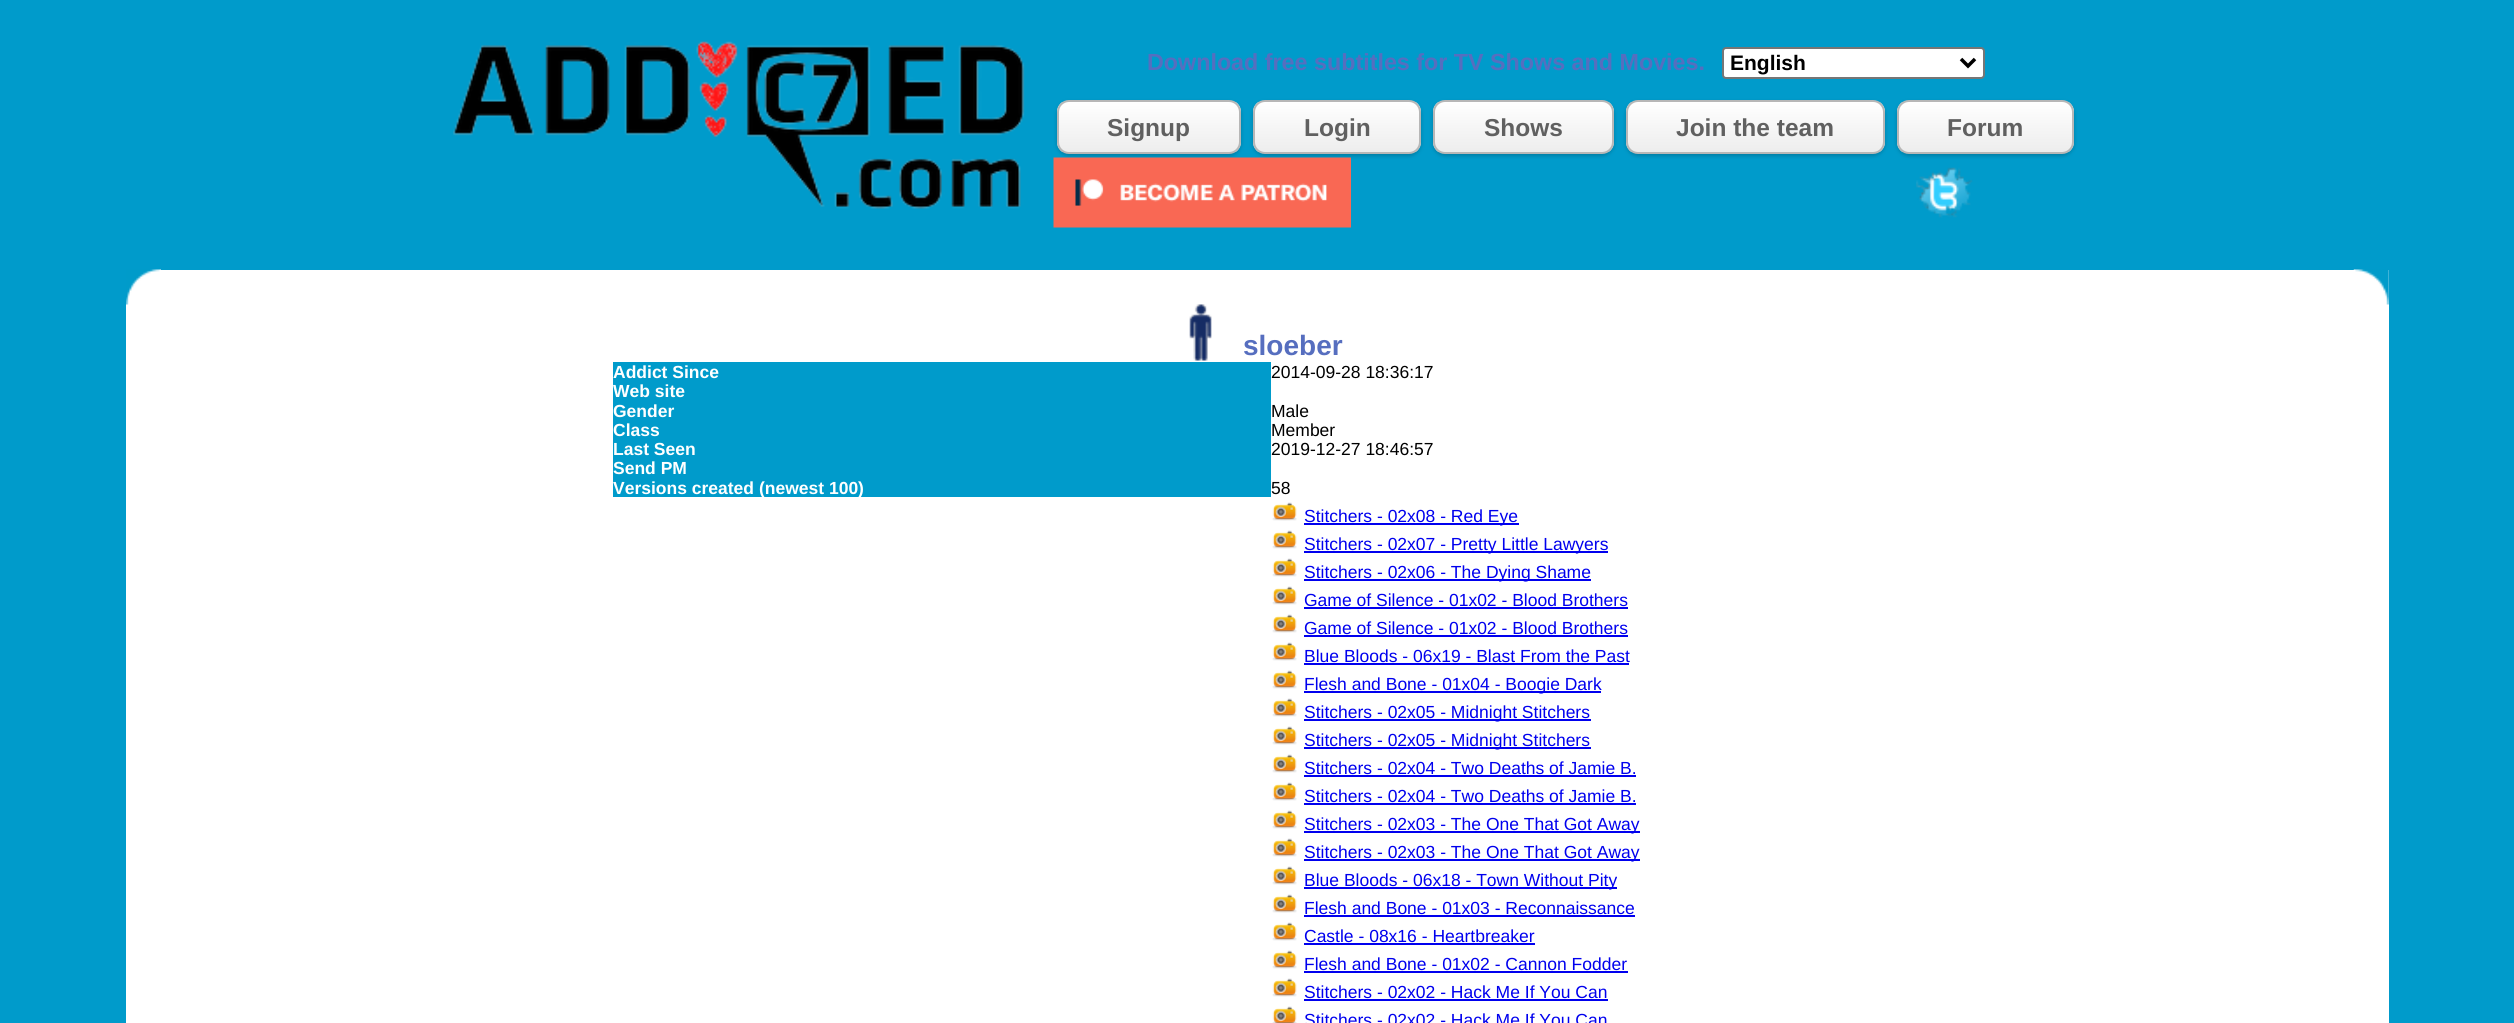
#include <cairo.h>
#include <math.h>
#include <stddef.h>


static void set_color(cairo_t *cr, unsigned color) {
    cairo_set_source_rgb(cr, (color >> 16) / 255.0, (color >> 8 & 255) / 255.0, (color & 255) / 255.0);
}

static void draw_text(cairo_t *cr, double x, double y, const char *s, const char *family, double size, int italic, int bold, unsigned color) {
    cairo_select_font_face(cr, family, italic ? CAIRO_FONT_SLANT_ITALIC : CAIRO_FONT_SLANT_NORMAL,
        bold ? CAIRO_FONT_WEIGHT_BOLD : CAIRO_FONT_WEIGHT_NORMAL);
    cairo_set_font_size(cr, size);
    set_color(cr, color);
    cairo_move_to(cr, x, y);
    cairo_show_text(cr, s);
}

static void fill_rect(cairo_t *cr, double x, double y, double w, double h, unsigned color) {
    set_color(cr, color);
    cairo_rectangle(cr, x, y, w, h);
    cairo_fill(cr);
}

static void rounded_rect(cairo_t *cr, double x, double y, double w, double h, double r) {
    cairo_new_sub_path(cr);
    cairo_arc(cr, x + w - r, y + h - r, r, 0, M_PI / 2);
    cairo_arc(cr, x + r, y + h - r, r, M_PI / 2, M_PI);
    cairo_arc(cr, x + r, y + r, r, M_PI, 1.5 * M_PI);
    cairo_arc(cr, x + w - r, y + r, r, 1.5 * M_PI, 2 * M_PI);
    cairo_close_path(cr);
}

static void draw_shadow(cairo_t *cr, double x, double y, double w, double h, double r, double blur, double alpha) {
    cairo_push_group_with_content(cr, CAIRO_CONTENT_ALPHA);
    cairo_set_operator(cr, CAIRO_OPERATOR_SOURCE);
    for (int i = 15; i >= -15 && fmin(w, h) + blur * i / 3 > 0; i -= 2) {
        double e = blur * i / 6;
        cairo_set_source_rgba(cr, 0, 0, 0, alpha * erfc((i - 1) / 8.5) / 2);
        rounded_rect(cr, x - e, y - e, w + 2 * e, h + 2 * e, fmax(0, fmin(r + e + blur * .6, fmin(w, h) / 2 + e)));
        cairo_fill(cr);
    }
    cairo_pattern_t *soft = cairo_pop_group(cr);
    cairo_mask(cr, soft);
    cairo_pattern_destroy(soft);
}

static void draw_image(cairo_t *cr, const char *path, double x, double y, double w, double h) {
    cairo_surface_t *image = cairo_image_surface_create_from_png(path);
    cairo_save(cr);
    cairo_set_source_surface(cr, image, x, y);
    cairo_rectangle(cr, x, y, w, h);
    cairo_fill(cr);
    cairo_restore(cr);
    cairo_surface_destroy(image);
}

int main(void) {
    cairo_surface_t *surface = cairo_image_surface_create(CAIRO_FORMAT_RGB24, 2514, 1023);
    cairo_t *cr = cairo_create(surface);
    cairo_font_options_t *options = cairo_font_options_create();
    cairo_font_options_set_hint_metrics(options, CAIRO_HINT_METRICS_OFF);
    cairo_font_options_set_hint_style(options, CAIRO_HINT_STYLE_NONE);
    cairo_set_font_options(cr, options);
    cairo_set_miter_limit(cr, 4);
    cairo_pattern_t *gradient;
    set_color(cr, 0x009BCB);
    cairo_paint(cr);
    draw_image(cr, "assets/img1.png", 453, 41, 572, 168);
    draw_text(cr, 1147, 70, "Download free subtitles for TV Shows and Movies.", "Liberation Sans", 23.3, 0, 1, 0x566EBF);
    set_color(cr, 0xFFFFFF);
    rounded_rect(cr, 1723, 48, 261, 30, 3);
    cairo_fill_preserve(cr);
    set_color(cr, 0x767676);
    cairo_stroke(cr);
    cairo_new_path(cr);
    cairo_move_to(cr, 1961, 59);
    cairo_line_to(cr, 1968, 66);
    cairo_line_to(cr, 1975, 59);
    set_color(cr, 0x000000);
    cairo_set_line_width(cr, 3.5);
    cairo_stroke(cr);
    draw_text(cr, 1730, 70, "English", "Liberation Sans", 21, 0, 1, 0x000000);
    set_color(cr, 0x000000);
    draw_shadow(cr, 1057, 102, 184, 54, 12, 2, 0.2);
    cairo_save(cr);
    rounded_rect(cr, 1057, 100, 184, 54, 12);
    cairo_clip(cr);
    gradient = cairo_pattern_create_linear(1059, 102, 1059, 152);
    cairo_pattern_add_color_stop_rgba(gradient, 0, 1, 1, 1, 1);
    cairo_pattern_add_color_stop_rgba(gradient, 1, 0.929, 0.929, 0.929, 1);
    cairo_set_source(cr, gradient);
    cairo_pattern_destroy(gradient);
    cairo_rectangle(cr, 1057, 102, 184, 50);
    cairo_fill(cr);
    cairo_restore(cr);
    rounded_rect(cr, 1058, 101, 182, 52, 11);
    set_color(cr, 0xB7B7B7);
    cairo_set_line_width(cr, 2);
    cairo_stroke(cr);
    draw_text(cr, 1107, 136, "Signup", "Liberation Sans", 24.5, 0, 1, 0x606060);
    set_color(cr, 0x000000);
    draw_shadow(cr, 1253, 102, 168, 54, 12, 2, 0.2);
    cairo_save(cr);
    rounded_rect(cr, 1253, 100, 168, 54, 12);
    cairo_clip(cr);
    gradient = cairo_pattern_create_linear(1255, 102, 1255, 152);
    cairo_pattern_add_color_stop_rgba(gradient, 0, 1, 1, 1, 1);
    cairo_pattern_add_color_stop_rgba(gradient, 1, 0.929, 0.929, 0.929, 1);
    cairo_set_source(cr, gradient);
    cairo_pattern_destroy(gradient);
    cairo_rectangle(cr, 1253, 102, 168, 50);
    cairo_fill(cr);
    cairo_restore(cr);
    rounded_rect(cr, 1254, 101, 166, 52, 11);
    set_color(cr, 0xB7B7B7);
    cairo_stroke(cr);
    draw_text(cr, 1304, 136, "Login", "Liberation Sans", 24.5, 0, 1, 0x606060);
    set_color(cr, 0x000000);
    draw_shadow(cr, 1433, 102, 181, 54, 12, 2, 0.2);
    cairo_save(cr);
    rounded_rect(cr, 1433, 100, 181, 54, 12);
    cairo_clip(cr);
    gradient = cairo_pattern_create_linear(1435, 102, 1435, 152);
    cairo_pattern_add_color_stop_rgba(gradient, 0, 1, 1, 1, 1);
    cairo_pattern_add_color_stop_rgba(gradient, 1, 0.929, 0.929, 0.929, 1);
    cairo_set_source(cr, gradient);
    cairo_pattern_destroy(gradient);
    cairo_rectangle(cr, 1433, 102, 181, 50);
    cairo_fill(cr);
    cairo_restore(cr);
    rounded_rect(cr, 1434, 101, 179, 52, 11);
    set_color(cr, 0xB7B7B7);
    cairo_stroke(cr);
    draw_text(cr, 1484, 136, "Shows", "Liberation Sans", 24.5, 0, 1, 0x606060);
    set_color(cr, 0x000000);
    draw_shadow(cr, 1626, 102, 259, 54, 12, 2, 0.2);
    cairo_save(cr);
    rounded_rect(cr, 1626, 100, 259, 54, 12);
    cairo_clip(cr);
    gradient = cairo_pattern_create_linear(1628, 102, 1628, 152);
    cairo_pattern_add_color_stop_rgba(gradient, 0, 1, 1, 1, 1);
    cairo_pattern_add_color_stop_rgba(gradient, 1, 0.929, 0.929, 0.929, 1);
    cairo_set_source(cr, gradient);
    cairo_pattern_destroy(gradient);
    cairo_rectangle(cr, 1626, 102, 259, 50);
    cairo_fill(cr);
    cairo_restore(cr);
    rounded_rect(cr, 1627, 101, 257, 52, 11);
    set_color(cr, 0xB7B7B7);
    cairo_stroke(cr);
    draw_text(cr, 1676, 136, "Join the team", "Liberation Sans", 24.5, 0, 1, 0x606060);
    set_color(cr, 0x000000);
    draw_shadow(cr, 1897, 102, 177, 54, 12, 2, 0.2);
    cairo_save(cr);
    rounded_rect(cr, 1897, 100, 177, 54, 12);
    cairo_clip(cr);
    gradient = cairo_pattern_create_linear(1899, 102, 1899, 152);
    cairo_pattern_add_color_stop_rgba(gradient, 0, 1, 1, 1, 1);
    cairo_pattern_add_color_stop_rgba(gradient, 1, 0.929, 0.929, 0.929, 1);
    cairo_set_source(cr, gradient);
    cairo_pattern_destroy(gradient);
    cairo_rectangle(cr, 1897, 102, 177, 50);
    cairo_fill(cr);
    cairo_restore(cr);
    rounded_rect(cr, 1898, 101, 175, 52, 11);
    set_color(cr, 0xB7B7B7);
    cairo_stroke(cr);
    draw_text(cr, 1947, 136, "Forum", "Liberation Sans", 24.5, 0, 1, 0x606060);
    draw_image(cr, "assets/img2.png", 1053, 157, 298, 71);
    draw_image(cr, "assets/img3.png", 1916, 167, 57, 51);
    fill_rect(cr, 126, 270, 2263, 753, 0xFFFFFF);
    draw_image(cr, "assets/img4.png", 126, 269, 35, 36);
    draw_image(cr, "assets/img5.png", 2353, 269, 36, 36);
    draw_image(cr, "assets/img6.png", 1189, 304, 23, 57);
    draw_text(cr, 1243, 355, "sloeber", "Liberation Sans", 28, 0, 1, 0x566EBF);
    fill_rect(cr, 613, 362, 658, 135, 0x009BCB);
    draw_text(cr, 613, 378, "Addict Since", "Liberation Sans", 17.5, 0, 1, 0xFFFFFF);
    draw_text(cr, 1271, 378, "2014-09-28 18:36:17", "Liberation Sans", 17.5, 0, 0, 0x000000);
    draw_text(cr, 613, 397, "Web site", "Liberation Sans", 17.5, 0, 1, 0xFFFFFF);
    draw_text(cr, 613, 417, "Gender", "Liberation Sans", 17.5, 0, 1, 0xFFFFFF);
    draw_text(cr, 1271, 417, "Male", "Liberation Sans", 17.5, 0, 0, 0x000000);
    draw_text(cr, 613, 436, "Class", "Liberation Sans", 17.5, 0, 1, 0xFFFFFF);
    draw_text(cr, 1271, 436, "Member", "Liberation Sans", 17.5, 0, 0, 0x000000);
    draw_text(cr, 613, 455, "Last Seen", "Liberation Sans", 17.5, 0, 1, 0xFFFFFF);
    draw_text(cr, 1271, 455, "2019-12-27 18:46:57", "Liberation Sans", 17.5, 0, 0, 0x000000);
    draw_text(cr, 613, 474, "Send PM", "Liberation Sans", 17.5, 0, 1, 0xFFFFFF);
    draw_text(cr, 613, 494, "Versions created (newest 100)", "Liberation Sans", 17.5, 0, 1, 0xFFFFFF);
    draw_text(cr, 1271, 494, "58", "Liberation Sans", 17.5, 0, 0, 0x000000);
    draw_image(cr, "assets/img7.png", 1272, 502, 25, 19);
    fill_rect(cr, 1304, 523, 215, 2, 0x0000EE);
    draw_text(cr, 1304, 522, "Stitchers - 02x08 - Red Eye", "Liberation Sans", 17.5, 0, 0, 0x0000EE);
    draw_image(cr, "assets/img8.png", 1272, 530, 25, 19);
    fill_rect(cr, 1304, 551, 304, 2, 0x0000EE);
    draw_text(cr, 1304, 550, "Stitchers - 02x07 - Pretty Little Lawyers", "Liberation Sans", 17.5, 0, 0, 0x0000EE);
    draw_image(cr, "assets/img9.png", 1272, 558, 25, 19);
    fill_rect(cr, 1304, 579, 287, 2, 0x0000EE);
    draw_text(cr, 1304, 578, "Stitchers - 02x06 - The Dying Shame", "Liberation Sans", 17.5, 0, 0, 0x0000EE);
    draw_image(cr, "assets/img9.png", 1272, 586, 25, 19);
    draw_text(cr, 1304, 606, "Game of Silence - 01x02 - Blood Brothers", "Liberation Sans", 17.5, 0, 0, 0x0000EE);
    fill_rect(cr, 1304, 607, 324, 2, 0x0000EE);
    draw_image(cr, "assets/img7.png", 1272, 614, 25, 19);
    draw_text(cr, 1304, 634, "Game of Silence - 01x02 - Blood Brothers", "Liberation Sans", 17.5, 0, 0, 0x0000EE);
    fill_rect(cr, 1304, 635, 324, 2, 0x0000EE);
    draw_image(cr, "assets/img9.png", 1272, 642, 25, 19);
    draw_text(cr, 1304, 662, "Blue Bloods - 06x19 - Blast From the Past", "Liberation Sans", 17.5, 0, 0, 0x0000EE);
    fill_rect(cr, 1304, 663, 325, 2, 0x0000EE);
    draw_image(cr, "assets/img9.png", 1272, 670, 25, 19);
    fill_rect(cr, 1304, 691, 297, 2, 0x0000EE);
    draw_text(cr, 1304, 690, "Flesh and Bone - 01x04 - Boogie Dark", "Liberation Sans", 17.5, 0, 0, 0x0000EE);
    draw_image(cr, "assets/img8.png", 1272, 698, 25, 19);
    fill_rect(cr, 1304, 719, 287, 2, 0x0000EE);
    draw_text(cr, 1304, 718, "Stitchers - 02x05 - Midnight Stitchers", "Liberation Sans", 17.5, 0, 0, 0x0000EE);
    draw_image(cr, "assets/img9.png", 1272, 726, 25, 19);
    fill_rect(cr, 1304, 747, 287, 2, 0x0000EE);
    draw_text(cr, 1304, 746, "Stitchers - 02x05 - Midnight Stitchers", "Liberation Sans", 17.5, 0, 0, 0x0000EE);
    draw_image(cr, "assets/img7.png", 1272, 754, 25, 19);
    draw_text(cr, 1304, 774, "Stitchers - 02x04 - Two Deaths of Jamie B.", "Liberation Sans", 17.5, 0, 0, 0x0000EE);
    fill_rect(cr, 1304, 775, 332, 2, 0x0000EE);
    draw_image(cr, "assets/img8.png", 1272, 782, 25, 19);
    draw_text(cr, 1304, 802, "Stitchers - 02x04 - Two Deaths of Jamie B.", "Liberation Sans", 17.5, 0, 0, 0x0000EE);
    fill_rect(cr, 1304, 803, 332, 2, 0x0000EE);
    draw_image(cr, "assets/img9.png", 1272, 810, 25, 19);
    fill_rect(cr, 1304, 831, 336, 2, 0x0000EE);
    draw_text(cr, 1304, 830, "Stitchers - 02x03 - The One That Got Away", "Liberation Sans", 17.5, 0, 0, 0x0000EE);
    draw_image(cr, "assets/img9.png", 1272, 838, 25, 19);
    fill_rect(cr, 1304, 859, 336, 2, 0x0000EE);
    draw_text(cr, 1304, 858, "Stitchers - 02x03 - The One That Got Away", "Liberation Sans", 17.5, 0, 0, 0x0000EE);
    draw_image(cr, "assets/img9.png", 1272, 866, 25, 19);
    fill_rect(cr, 1304, 887, 313, 2, 0x0000EE);
    draw_text(cr, 1304, 886, "Blue Bloods - 06x18 - Town Without Pity", "Liberation Sans", 17.5, 0, 0, 0x0000EE);
    draw_image(cr, "assets/img7.png", 1272, 894, 25, 19);
    draw_text(cr, 1304, 914, "Flesh and Bone - 01x03 - Reconnaissance", "Liberation Sans", 17.5, 0, 0, 0x0000EE);
    fill_rect(cr, 1304, 915, 331, 2, 0x0000EE);
    draw_image(cr, "assets/img9.png", 1272, 922, 25, 19);
    draw_text(cr, 1304, 942, "Castle - 08x16 - Heartbreaker", "Liberation Sans", 17.5, 0, 0, 0x0000EE);
    fill_rect(cr, 1304, 943, 231, 2, 0x0000EE);
    draw_image(cr, "assets/img9.png", 1272, 950, 25, 19);
    draw_text(cr, 1304, 970, "Flesh and Bone - 01x02 - Cannon Fodder", "Liberation Sans", 17.5, 0, 0, 0x0000EE);
    fill_rect(cr, 1304, 971, 324, 2, 0x0000EE);
    draw_image(cr, "assets/img9.png", 1272, 978, 25, 19);
    draw_text(cr, 1304, 998, "Stitchers - 02x02 - Hack Me If You Can", "Liberation Sans", 17.5, 0, 0, 0x0000EE);
    fill_rect(cr, 1304, 999, 304, 2, 0x0000EE);
    draw_image(cr, "assets/img10.png", 1272, 1006, 25, 17);
    draw_text(cr, 1304, 1026, "Stitchers - 02x02 - Hack Me If You Can", "Liberation Sans", 17.5, 0, 0, 0x0000EE);
    cairo_surface_write_to_png(surface, "output.png");
    cairo_font_options_destroy(options);
    cairo_destroy(cr);
    cairo_surface_destroy(surface);
    return 0;
}
